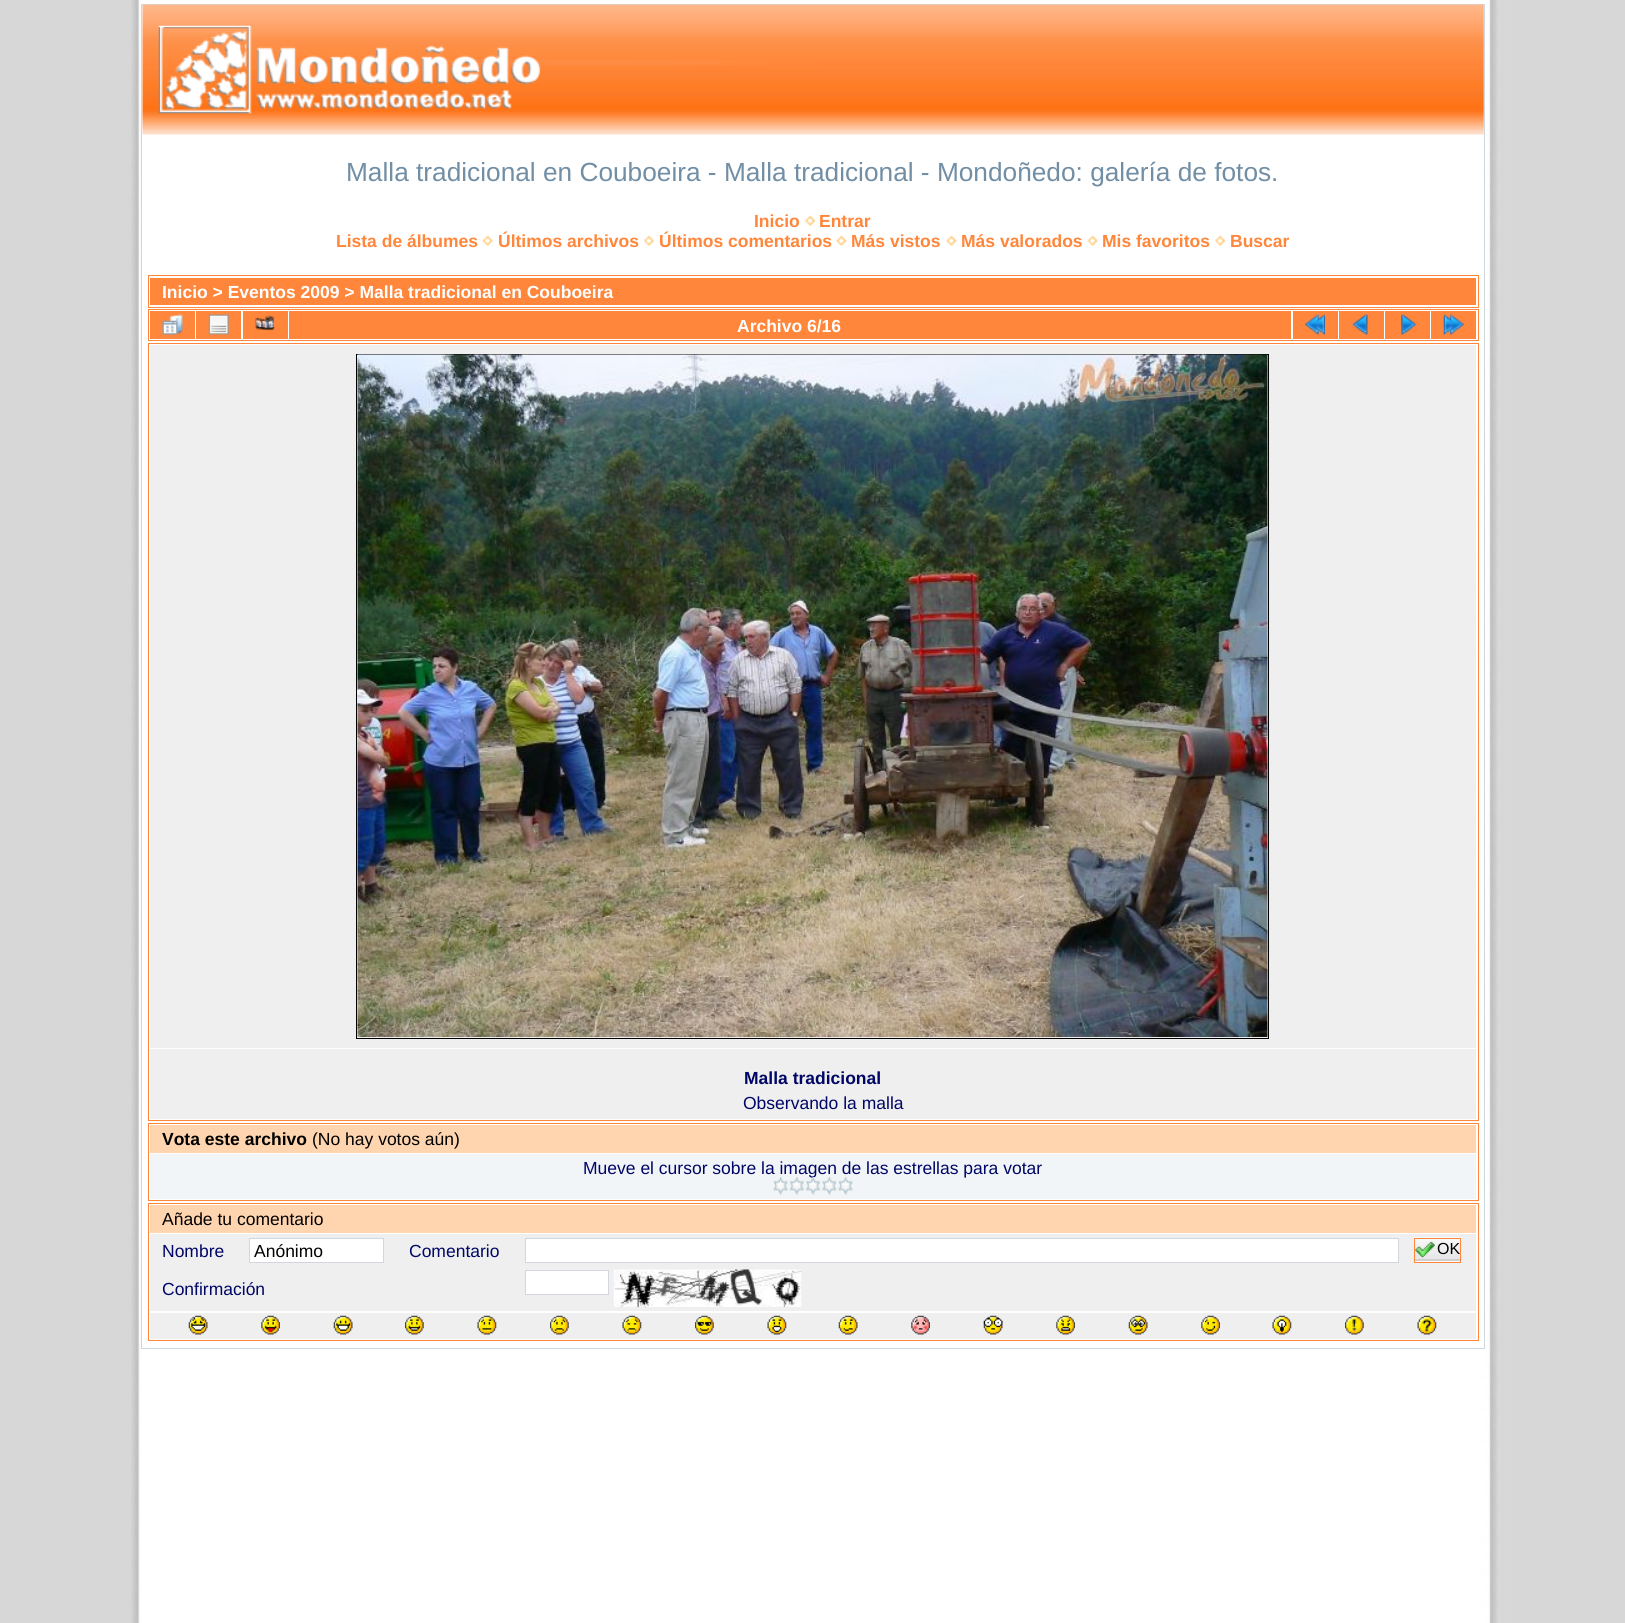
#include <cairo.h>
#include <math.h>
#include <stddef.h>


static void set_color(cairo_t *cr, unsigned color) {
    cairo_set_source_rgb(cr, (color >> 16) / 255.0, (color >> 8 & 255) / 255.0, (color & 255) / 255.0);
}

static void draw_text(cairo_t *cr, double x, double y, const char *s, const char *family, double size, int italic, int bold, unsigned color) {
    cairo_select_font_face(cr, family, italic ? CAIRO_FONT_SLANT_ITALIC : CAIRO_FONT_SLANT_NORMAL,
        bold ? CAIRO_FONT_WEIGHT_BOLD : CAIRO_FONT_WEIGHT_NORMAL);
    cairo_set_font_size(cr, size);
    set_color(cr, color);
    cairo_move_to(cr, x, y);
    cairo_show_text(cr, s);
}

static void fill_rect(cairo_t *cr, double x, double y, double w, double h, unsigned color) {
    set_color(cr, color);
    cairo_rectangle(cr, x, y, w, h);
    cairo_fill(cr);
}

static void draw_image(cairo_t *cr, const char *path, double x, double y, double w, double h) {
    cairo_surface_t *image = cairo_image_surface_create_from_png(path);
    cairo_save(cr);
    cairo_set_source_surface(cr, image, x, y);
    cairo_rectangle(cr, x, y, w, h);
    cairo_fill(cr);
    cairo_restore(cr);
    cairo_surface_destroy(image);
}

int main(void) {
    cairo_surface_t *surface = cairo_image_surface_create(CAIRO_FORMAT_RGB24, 1625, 1623);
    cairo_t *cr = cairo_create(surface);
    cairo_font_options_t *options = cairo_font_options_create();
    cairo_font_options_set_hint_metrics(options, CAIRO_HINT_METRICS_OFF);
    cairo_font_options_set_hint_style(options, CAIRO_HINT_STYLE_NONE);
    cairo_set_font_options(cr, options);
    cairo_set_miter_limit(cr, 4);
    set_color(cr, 0xFFFFFF);
    cairo_paint(cr);
    draw_image(cr, "assets/img1.png", 0, 0, 1625, 1623);
    cairo_rectangle(cr, 141.5, 4.5, 1343, 1344);
    set_color(cr, 0xCCD7E0);
    cairo_set_line_width(cr, 1);
    cairo_stroke(cr);
    draw_image(cr, "assets/img2.png", 142, 4, 1342, 131);
    draw_text(cr, 346, 181, "Malla tradicional en Couboeira - Malla tradicional - Mondoñedo: galería de fotos.", "Liberation Sans", 26.25, 0, 0, 0x718EA5);
    draw_text(cr, 754, 227, "Inicio", "Liberation Sans", 17.5, 0, 1, 0xFF863A);
    draw_image(cr, "assets/img3.png", 805, 215, 10, 11);
    draw_text(cr, 819, 227, "Entrar", "Liberation Sans", 17.5, 0, 1, 0xFF863A);
    draw_text(cr, 336, 247, "Lista de álbumes", "Liberation Sans", 17.5, 0, 1, 0xFF863A);
    draw_image(cr, "assets/img4.png", 482, 235, 11, 11);
    draw_text(cr, 498, 247, "Últimos archivos", "Liberation Sans", 17.5, 0, 1, 0xFF863A);
    draw_image(cr, "assets/img5.png", 643, 235, 11, 11);
    draw_text(cr, 659, 247, "Últimos comentarios", "Liberation Sans", 17.5, 0, 1, 0xFF863A);
    draw_image(cr, "assets/img6.png", 836, 235, 11, 11);
    draw_text(cr, 851, 247, "Más vistos", "Liberation Sans", 17.5, 0, 1, 0xFF863A);
    draw_image(cr, "assets/img6.png", 946, 235, 11, 11);
    draw_text(cr, 961, 247, "Más valorados", "Liberation Sans", 17.5, 0, 1, 0xFF863A);
    draw_image(cr, "assets/img7.png", 1087, 235, 11, 11);
    draw_text(cr, 1102, 247, "Mis favoritos", "Liberation Sans", 17.5, 0, 1, 0xFF863A);
    draw_image(cr, "assets/img8.png", 1215, 235, 10, 11);
    draw_text(cr, 1230, 247, "Buscar", "Liberation Sans", 17.5, 0, 1, 0xFF863A);
    cairo_rectangle(cr, 148.5, 275.5, 1330, 32);
    cairo_stroke(cr);
    fill_rect(cr, 150, 278, 1326, 27, 0xFF863A);
    draw_text(cr, 162, 298, "Inicio > Eventos 2009 > Malla tradicional en Couboeira", "Liberation Sans", 17.5, 0, 1, 0xFFFFFF);
    cairo_rectangle(cr, 148.5, 309.5, 1330, 31);
    set_color(cr, 0xFF863A);
    cairo_stroke(cr);
    fill_rect(cr, 150, 311, 45, 28, 0xFF863A);
    draw_image(cr, "assets/img9.png", 162, 314, 21, 21);
    fill_rect(cr, 196, 311, 45, 28, 0xFF863A);
    draw_image(cr, "assets/img10.png", 208, 314, 21, 21);
    fill_rect(cr, 243, 311, 45, 28, 0xFF863A);
    draw_image(cr, "assets/img11.png", 255, 315, 20, 16);
    fill_rect(cr, 289, 311, 1002, 28, 0xFF863A);
    draw_text(cr, 737, 332, "Archivo 6/16", "Liberation Sans", 17.5, 0, 1, 0xFFFFFF);
    fill_rect(cr, 1293, 311, 45, 28, 0xFF863A);
    draw_image(cr, "assets/img12.png", 1305, 314, 20, 21);
    fill_rect(cr, 1339, 311, 45, 28, 0xFF863A);
    draw_image(cr, "assets/img13.png", 1352, 314, 16, 21);
    fill_rect(cr, 1385, 311, 45, 28, 0xFF863A);
    draw_image(cr, "assets/img14.png", 1401, 314, 16, 21);
    fill_rect(cr, 1431, 311, 45, 28, 0xFF863A);
    draw_image(cr, "assets/img15.png", 1443, 314, 21, 21);
    cairo_rectangle(cr, 148.5, 343.5, 1330, 777);
    cairo_stroke(cr);
    fill_rect(cr, 150, 345, 1326, 703, 0xEFEFEF);
    cairo_rectangle(cr, 356.5, 354.5, 912, 684);
    set_color(cr, 0x000000);
    cairo_stroke(cr);
    draw_image(cr, "assets/img16.png", 357, 354, 911, 683);
    fill_rect(cr, 150, 1049, 1326, 70, 0xEFEFEF);
    draw_text(cr, 744, 1084, "Malla tradicional", "Liberation Sans", 17.5, 0, 1, 0x000666);
    draw_text(cr, 743, 1109, "Observando la malla", "Liberation Sans", 17.5, 0, 0, 0x000666);
    cairo_rectangle(cr, 148.5, 1123.5, 1330, 77);
    set_color(cr, 0xFF863A);
    cairo_stroke(cr);
    fill_rect(cr, 150, 1125, 1326, 28, 0xFFD5B0);
    draw_text(cr, 162, 1145, "Vota este archivo", "Liberation Sans", 17.5, 0, 1, 0x000000);
    draw_text(cr, 312, 1145, "(No hay votos aún)", "Liberation Sans", 17.5, 0, 0, 0x000000);
    fill_rect(cr, 150, 1154, 1326, 45, 0xF2F5F7);
    draw_text(cr, 583, 1174, "Mueve el cursor sobre la imagen de las estrellas para votar", "Liberation Sans", 17.5, 0, 0, 0x000666);
    draw_image(cr, "assets/img17.png", 772, 1177, 16, 18);
    draw_image(cr, "assets/img18.png", 789, 1177, 15, 18);
    draw_image(cr, "assets/img19.png", 805, 1177, 16, 18);
    draw_image(cr, "assets/img20.png", 821, 1177, 16, 18);
    draw_image(cr, "assets/img17.png", 837, 1177, 16, 18);
    cairo_rectangle(cr, 148.5, 1203.5, 1330, 137);
    set_color(cr, 0xFF863A);
    cairo_stroke(cr);
    fill_rect(cr, 150, 1205, 1326, 28, 0xFFD5B0);
    draw_text(cr, 162, 1225, "Añade tu comentario", "Liberation Sans", 17.5, 0, 0, 0x000000);
    fill_rect(cr, 150, 1234, 1326, 32, 0xEFEFEF);
    draw_text(cr, 162, 1257, "Nombre", "Liberation Sans", 17.5, 0, 0, 0x000666);
    set_color(cr, 0xFFFFFF);
    cairo_rectangle(cr, 249.5, 1238.5, 134, 24);
    cairo_fill_preserve(cr);
    set_color(cr, 0xD1D7DC);
    cairo_stroke(cr);
    draw_text(cr, 254, 1257, "Anónimo", "Liberation Sans", 17.5, 0, 0, 0x000000);
    draw_text(cr, 409, 1257, "Comentario", "Liberation Sans", 17.5, 0, 0, 0x000666);
    set_color(cr, 0xFFFFFF);
    cairo_rectangle(cr, 525.5, 1238.5, 873, 24);
    cairo_fill_preserve(cr);
    set_color(cr, 0xD1D7DC);
    cairo_stroke(cr);
    draw_image(cr, "assets/img21.png", 1413, 1237, 49, 25);
    cairo_rectangle(cr, 1414.5, 1238.5, 46, 24);
    set_color(cr, 0xFF863A);
    cairo_stroke(cr);
    draw_image(cr, "assets/img22.png", 1415, 1241, 20, 17);
    draw_text(cr, 1437, 1254, "OK", "Liberation Sans", 16, 0, 0, 0x000000);
    fill_rect(cr, 150, 1266, 1326, 45, 0xEFEFEF);
    draw_text(cr, 162, 1295, "Confirmación", "Liberation Sans", 17.5, 0, 0, 0x000666);
    set_color(cr, 0xFFFFFF);
    cairo_rectangle(cr, 525.5, 1270.5, 83, 24);
    cairo_fill_preserve(cr);
    set_color(cr, 0xD1D7DC);
    cairo_stroke(cr);
    draw_image(cr, "assets/img23.png", 613, 1269, 189, 38);
    fill_rect(cr, 150, 1313, 1326, 26, 0xEFEFEF);
    draw_image(cr, "assets/img24.png", 188, 1315, 20, 20);
    draw_image(cr, "assets/img25.png", 261, 1315, 19, 20);
    draw_image(cr, "assets/img26.png", 333, 1315, 20, 20);
    draw_image(cr, "assets/img27.png", 405, 1315, 19, 20);
    draw_image(cr, "assets/img28.png", 477, 1315, 20, 20);
    draw_image(cr, "assets/img29.png", 550, 1315, 19, 20);
    draw_image(cr, "assets/img30.png", 622, 1315, 20, 20);
    draw_image(cr, "assets/img31.png", 695, 1315, 19, 20);
    draw_image(cr, "assets/img32.png", 767, 1315, 20, 20);
    draw_image(cr, "assets/img33.png", 838, 1315, 20, 20);
    draw_image(cr, "assets/img34.png", 911, 1315, 19, 20);
    draw_image(cr, "assets/img35.png", 983, 1315, 20, 20);
    draw_image(cr, "assets/img36.png", 1056, 1315, 19, 20);
    draw_image(cr, "assets/img37.png", 1128, 1315, 20, 20);
    draw_image(cr, "assets/img38.png", 1201, 1315, 19, 20);
    draw_image(cr, "assets/img39.png", 1272, 1315, 20, 20);
    draw_image(cr, "assets/img40.png", 1345, 1315, 19, 20);
    draw_image(cr, "assets/img41.png", 1417, 1315, 20, 20);
    cairo_surface_write_to_png(surface, "output.png");
    cairo_font_options_destroy(options);
    cairo_destroy(cr);
    cairo_surface_destroy(surface);
    return 0;
}
